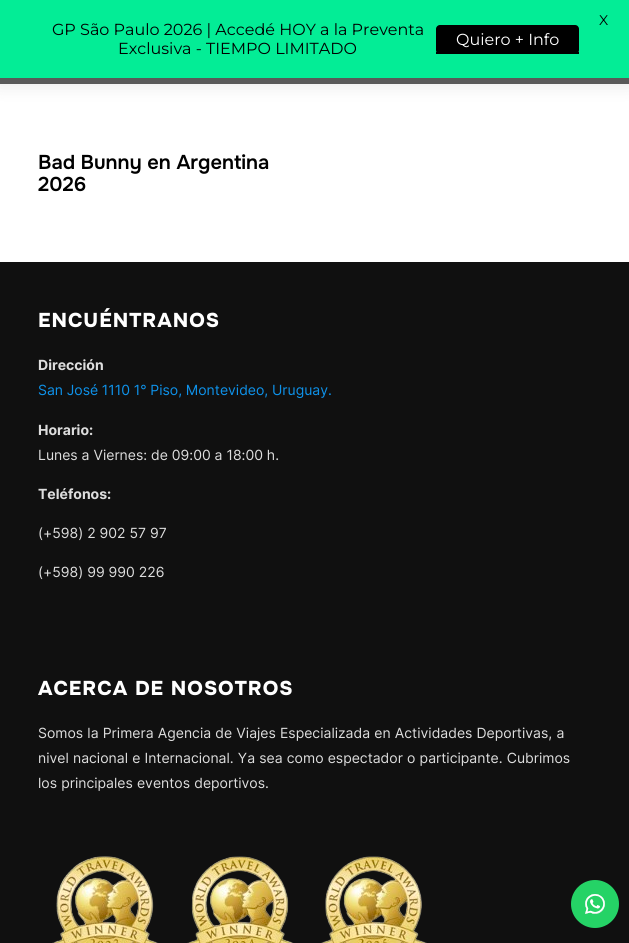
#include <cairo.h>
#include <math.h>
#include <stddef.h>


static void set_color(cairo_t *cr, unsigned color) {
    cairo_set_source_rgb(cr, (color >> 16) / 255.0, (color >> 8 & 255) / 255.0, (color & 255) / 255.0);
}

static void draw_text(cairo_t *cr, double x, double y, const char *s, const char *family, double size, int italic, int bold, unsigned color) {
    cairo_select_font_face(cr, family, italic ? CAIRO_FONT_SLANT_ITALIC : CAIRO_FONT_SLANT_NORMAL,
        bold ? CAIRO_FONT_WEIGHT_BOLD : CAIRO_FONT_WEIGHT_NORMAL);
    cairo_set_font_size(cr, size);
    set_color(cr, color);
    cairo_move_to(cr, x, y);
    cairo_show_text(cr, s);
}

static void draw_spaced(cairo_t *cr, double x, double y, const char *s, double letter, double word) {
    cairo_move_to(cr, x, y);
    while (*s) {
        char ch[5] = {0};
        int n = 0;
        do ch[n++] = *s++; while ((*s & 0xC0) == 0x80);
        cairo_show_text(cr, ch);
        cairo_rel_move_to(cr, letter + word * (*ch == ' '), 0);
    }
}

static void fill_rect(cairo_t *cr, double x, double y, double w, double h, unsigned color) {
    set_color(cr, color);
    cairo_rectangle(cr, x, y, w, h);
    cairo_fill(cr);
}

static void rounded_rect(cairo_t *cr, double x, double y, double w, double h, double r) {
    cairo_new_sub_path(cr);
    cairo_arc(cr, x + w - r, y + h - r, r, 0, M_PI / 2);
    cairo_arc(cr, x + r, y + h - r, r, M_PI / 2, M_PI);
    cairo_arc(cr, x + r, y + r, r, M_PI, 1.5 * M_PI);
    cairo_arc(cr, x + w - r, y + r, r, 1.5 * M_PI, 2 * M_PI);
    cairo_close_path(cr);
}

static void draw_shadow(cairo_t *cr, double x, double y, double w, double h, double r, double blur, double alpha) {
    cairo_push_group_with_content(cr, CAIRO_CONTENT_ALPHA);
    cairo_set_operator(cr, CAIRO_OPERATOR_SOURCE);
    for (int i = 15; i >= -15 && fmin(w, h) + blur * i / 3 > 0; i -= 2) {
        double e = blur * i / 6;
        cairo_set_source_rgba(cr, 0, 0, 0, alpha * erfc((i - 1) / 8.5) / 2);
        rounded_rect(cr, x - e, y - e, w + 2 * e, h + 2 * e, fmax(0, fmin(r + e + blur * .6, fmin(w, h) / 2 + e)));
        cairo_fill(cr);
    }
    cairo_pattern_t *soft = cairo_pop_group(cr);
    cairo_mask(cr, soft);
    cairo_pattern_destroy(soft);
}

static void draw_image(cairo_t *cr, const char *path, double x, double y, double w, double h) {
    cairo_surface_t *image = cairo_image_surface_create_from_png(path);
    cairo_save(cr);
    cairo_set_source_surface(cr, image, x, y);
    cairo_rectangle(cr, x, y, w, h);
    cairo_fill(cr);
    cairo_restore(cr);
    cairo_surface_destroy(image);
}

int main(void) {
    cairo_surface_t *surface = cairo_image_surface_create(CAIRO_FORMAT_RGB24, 629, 943);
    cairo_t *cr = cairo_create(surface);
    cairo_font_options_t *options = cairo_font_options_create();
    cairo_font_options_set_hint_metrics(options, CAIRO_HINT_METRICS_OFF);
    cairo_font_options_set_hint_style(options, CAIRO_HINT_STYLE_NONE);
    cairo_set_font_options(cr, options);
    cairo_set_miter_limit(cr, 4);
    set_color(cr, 0xFFFFFF);
    cairo_paint(cr);
    set_color(cr, 0x000000);
    draw_shadow(cr, -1, -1, 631, 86, 0, 9, 0.1);
    fill_rect(cr, 0, 0, 629, 78, 0x03ED96);
    draw_text(cr, 599, 25, "X", "Montserrat Thin", 14, 0, 0, 0x000000);
    draw_text(cr, 52, 35, "GP São Paulo 2026 | Accedé HOY a la Preventa", "Montserrat Thin", 16, 0, 0, 0x000000);
    draw_text(cr, 118, 54, "Exclusiva - TIEMPO LIMITADO", "Montserrat Thin", 16, 0, 0, 0x000000);
    rounded_rect(cr, 436, 25, 143, 29, 4);
    cairo_fill(cr);
    draw_text(cr, 456, 45, "Quiero + Info", "Montserrat Thin", 16, 0, 0, 0xFFFFFF);
    fill_rect(cr, 436, 52, 143, 2, 0x000000);
    fill_rect(cr, 0, 78, 629, 6, 0x595959);
    draw_text(cr, 38, 169, "Bad Bunny en Argentina", "Onest SemiBold", 20, 0, 0, 0x000000);
    draw_text(cr, 38, 191, "2026", "Onest SemiBold", 20, 0, 0, 0x000000);
    fill_rect(cr, 0, 262, 629, 681, 0x101010);
    cairo_select_font_face(cr, "Onest ExtraBold", CAIRO_FONT_SLANT_NORMAL, CAIRO_FONT_WEIGHT_NORMAL);
    set_color(cr, 0xFFFFFF);
    draw_spaced(cr, 38, 327, "ENCUÉNTRANOS", 1, 0);
    draw_text(cr, 38, 370, "Dirección", "Inter", 14, 0, 1, 0xDDDDDD);
    cairo_select_font_face(cr, "Inter", CAIRO_FONT_SLANT_NORMAL, CAIRO_FONT_WEIGHT_NORMAL);
    set_color(cr, 0x0E92EA);
    draw_spaced(cr, 38, 395, "San José 1110 1° Piso, Montevideo, Uruguay.", 0, -0.25);
    draw_text(cr, 38, 435, "Horario:", "Inter", 14, 0, 1, 0xDDDDDD);
    draw_text(cr, 38, 460, "Lunes a Viernes: de 09:00 a 18:00 h.", "Inter", 14, 0, 0, 0xDDDDDD);
    draw_text(cr, 38, 499, "Teléfonos:", "Inter", 14, 0, 1, 0xDDDDDD);
    draw_text(cr, 38, 538, "(+598) 2 902 57 97", "Inter", 14, 0, 0, 0xDDDDDD);
    draw_text(cr, 38, 577, "(+598) 99 990 226", "Inter", 14, 0, 0, 0xDDDDDD);
    cairo_select_font_face(cr, "Onest ExtraBold", CAIRO_FONT_SLANT_NORMAL, CAIRO_FONT_WEIGHT_NORMAL);
    cairo_set_font_size(cr, 20);
    set_color(cr, 0xFFFFFF);
    draw_spaced(cr, 38, 695, "ACERCA DE NOSOTROS", 1, 0);
    cairo_select_font_face(cr, "Inter", CAIRO_FONT_SLANT_NORMAL, CAIRO_FONT_WEIGHT_NORMAL);
    cairo_set_font_size(cr, 14);
    set_color(cr, 0xDDDDDD);
    draw_spaced(cr, 38, 738, "Somos la Primera Agencia de Viajes Especializada en Actividades Deportivas, a", 0, 0.25);
    draw_spaced(cr, 38, 763, "nivel nacional e Internacional. Ya sea como espectador o participante. Cubrimos", 0, 0.25);
    draw_spaced(cr, 38, 788, "los principales eventos deportivos.", 0, 0.25);
    draw_image(cr, "assets/img1.png", 52, 856, 375, 87);
    set_color(cr, 0x25D366);
    cairo_arc(cr, 595, 904, 24, 0, 2 * M_PI);
    cairo_fill(cr);
    draw_image(cr, "assets/img2.png", 585, 894, 20, 20);
    cairo_surface_write_to_png(surface, "output.png");
    cairo_font_options_destroy(options);
    cairo_destroy(cr);
    cairo_surface_destroy(surface);
    return 0;
}
